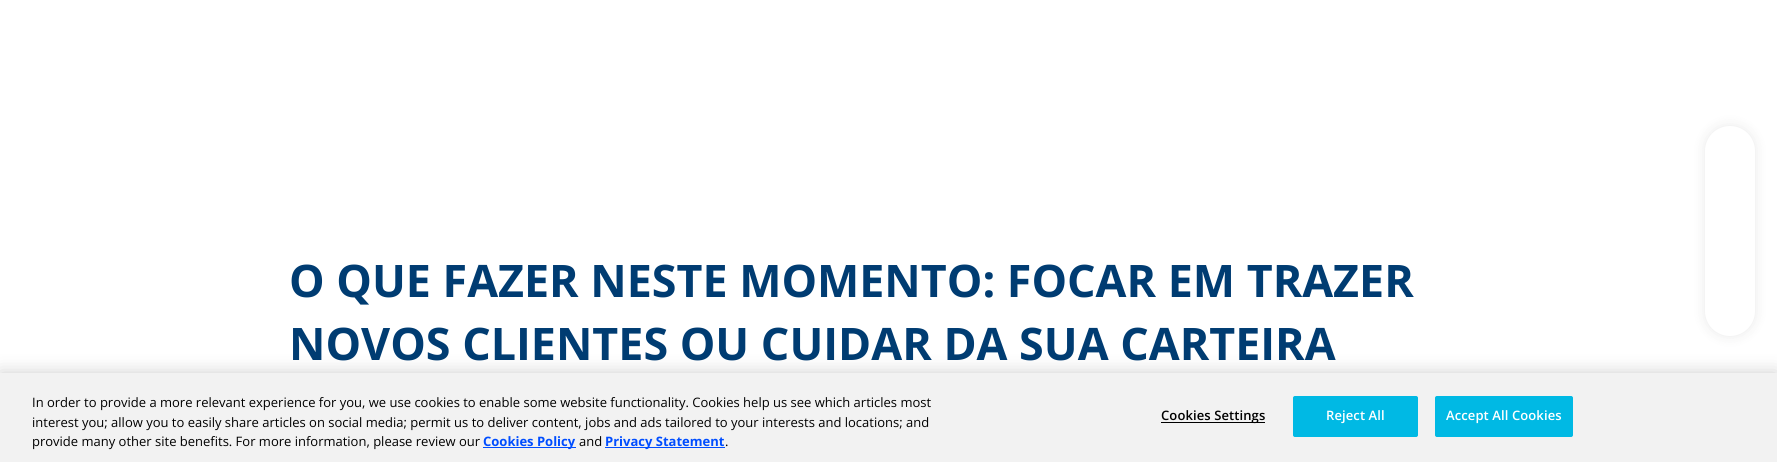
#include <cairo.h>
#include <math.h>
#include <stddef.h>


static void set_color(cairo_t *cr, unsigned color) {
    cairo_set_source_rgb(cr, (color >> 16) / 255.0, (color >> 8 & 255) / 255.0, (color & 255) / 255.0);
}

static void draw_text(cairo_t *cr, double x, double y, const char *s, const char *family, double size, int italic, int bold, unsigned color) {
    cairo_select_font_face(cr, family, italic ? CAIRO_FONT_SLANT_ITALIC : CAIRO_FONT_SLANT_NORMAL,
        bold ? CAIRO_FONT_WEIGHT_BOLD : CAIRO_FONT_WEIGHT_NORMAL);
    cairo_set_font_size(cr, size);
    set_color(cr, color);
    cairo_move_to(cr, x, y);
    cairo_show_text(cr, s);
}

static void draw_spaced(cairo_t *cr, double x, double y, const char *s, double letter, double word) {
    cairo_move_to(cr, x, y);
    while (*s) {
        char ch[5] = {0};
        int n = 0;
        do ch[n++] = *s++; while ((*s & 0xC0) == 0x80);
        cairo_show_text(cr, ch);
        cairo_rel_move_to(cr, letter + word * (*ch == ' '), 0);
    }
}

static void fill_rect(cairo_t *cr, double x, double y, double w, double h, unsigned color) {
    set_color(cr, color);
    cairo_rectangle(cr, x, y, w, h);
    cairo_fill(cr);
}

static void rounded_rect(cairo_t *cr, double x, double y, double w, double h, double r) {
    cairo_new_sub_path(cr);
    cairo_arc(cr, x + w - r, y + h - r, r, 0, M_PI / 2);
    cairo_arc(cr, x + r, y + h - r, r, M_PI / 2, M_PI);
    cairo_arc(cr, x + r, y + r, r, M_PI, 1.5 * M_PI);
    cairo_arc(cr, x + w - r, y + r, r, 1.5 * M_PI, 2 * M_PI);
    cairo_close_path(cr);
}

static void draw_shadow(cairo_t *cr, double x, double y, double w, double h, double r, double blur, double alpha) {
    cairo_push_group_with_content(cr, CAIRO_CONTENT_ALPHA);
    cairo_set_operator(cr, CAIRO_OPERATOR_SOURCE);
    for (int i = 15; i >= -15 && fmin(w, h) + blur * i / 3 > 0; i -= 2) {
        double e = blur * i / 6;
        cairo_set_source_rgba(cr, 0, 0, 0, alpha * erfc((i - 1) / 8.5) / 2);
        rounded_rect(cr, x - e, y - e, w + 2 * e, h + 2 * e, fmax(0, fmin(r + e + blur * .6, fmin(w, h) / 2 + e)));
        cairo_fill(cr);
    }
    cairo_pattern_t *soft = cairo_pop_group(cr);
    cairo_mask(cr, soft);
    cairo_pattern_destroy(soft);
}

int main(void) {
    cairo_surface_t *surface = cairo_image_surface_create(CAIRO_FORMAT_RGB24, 1777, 462);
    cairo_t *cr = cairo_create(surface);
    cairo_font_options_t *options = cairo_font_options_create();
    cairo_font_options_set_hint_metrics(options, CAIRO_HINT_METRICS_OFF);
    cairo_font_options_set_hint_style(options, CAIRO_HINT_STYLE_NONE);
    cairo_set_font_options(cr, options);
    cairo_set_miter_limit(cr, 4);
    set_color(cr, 0xFFFFFF);
    cairo_paint(cr);
    draw_text(cr, 289, 297, "O QUE FAZER NESTE MOMENTO: FOCAR EM TRAZER", "Open Sans", 44.8, 0, 1, 0x003C72);
    draw_text(cr, 289, 360, "NOVOS CLIENTES OU CUIDAR DA SUA CARTEIRA", "Open Sans", 44.8, 0, 1, 0x003C72);
    set_color(cr, 0x1A1A18);
    draw_shadow(cr, 1705, 126, 50, 210, 25, 6, 0.1);
    set_color(cr, 0xFFFFFF);
    rounded_rect(cr, 1705, 126, 50, 210, 25);
    cairo_fill(cr);
    set_color(cr, 0x000000);
    draw_shadow(cr, 0, 373, 1777, 89, 0, 9, 0.2);
    fill_rect(cr, 0, 373, 1777, 89, 0xF2F2F2);
    draw_text(cr, 32, 407, "In order to provide a more relevant experience for you, we use cookies to enable some website functionality. Cookies help us see which articles most", "Open Sans", 13, 0, 0, 0x000000);
    draw_text(cr, 32, 427, "interest you; allow you to easily share articles on social media; permit us to deliver content, jobs and ads tailored to your interests and locations; and", "Open Sans", 13, 0, 0, 0x000000);
    draw_text(cr, 32, 446, "provide many other site benefits. For more information, please review our", "Open Sans", 13, 0, 0, 0x000000);
    fill_rect(cr, 483, 447, 93, 1, 0x004DFF);
    draw_text(cr, 483, 446, "Cookies Policy", "Open Sans", 13, 0, 1, 0x004DFF);
    draw_text(cr, 579, 446, "and", "Open Sans", 13, 0, 0, 0x000000);
    fill_rect(cr, 605, 447, 120, 1, 0x004DFF);
    draw_text(cr, 605, 446, "Privacy Statement", "Open Sans", 13, 0, 1, 0x004DFF);
    draw_text(cr, 725, 446, ".", "Open Sans", 13, 0, 0, 0x000000);
    fill_rect(cr, 1161, 422, 104, 1, 0x000000);
    cairo_select_font_face(cr, "Open Sans SemiBold", CAIRO_FONT_SLANT_NORMAL, CAIRO_FONT_WEIGHT_NORMAL);
    draw_spaced(cr, 1161, 420, "Cookies Settings", 0.1, 0);
    set_color(cr, 0x00B9E4);
    rounded_rect(cr, 1293.5, 396.5, 124, 40, 1.5);
    cairo_fill_preserve(cr);
    cairo_set_line_width(cr, 1);
    cairo_stroke(cr);
    set_color(cr, 0xFFFFFF);
    draw_spaced(cr, 1326, 420, "Reject All", 0.1, 0);
    set_color(cr, 0x00B9E4);
    rounded_rect(cr, 1435.5, 396.5, 137, 40, 1.5);
    cairo_fill_preserve(cr);
    cairo_stroke(cr);
    set_color(cr, 0xFFFFFF);
    draw_spaced(cr, 1446, 420, "Accept All Cookies", 0.1, 0);
    cairo_surface_write_to_png(surface, "output.png");
    cairo_font_options_destroy(options);
    cairo_destroy(cr);
    cairo_surface_destroy(surface);
    return 0;
}
